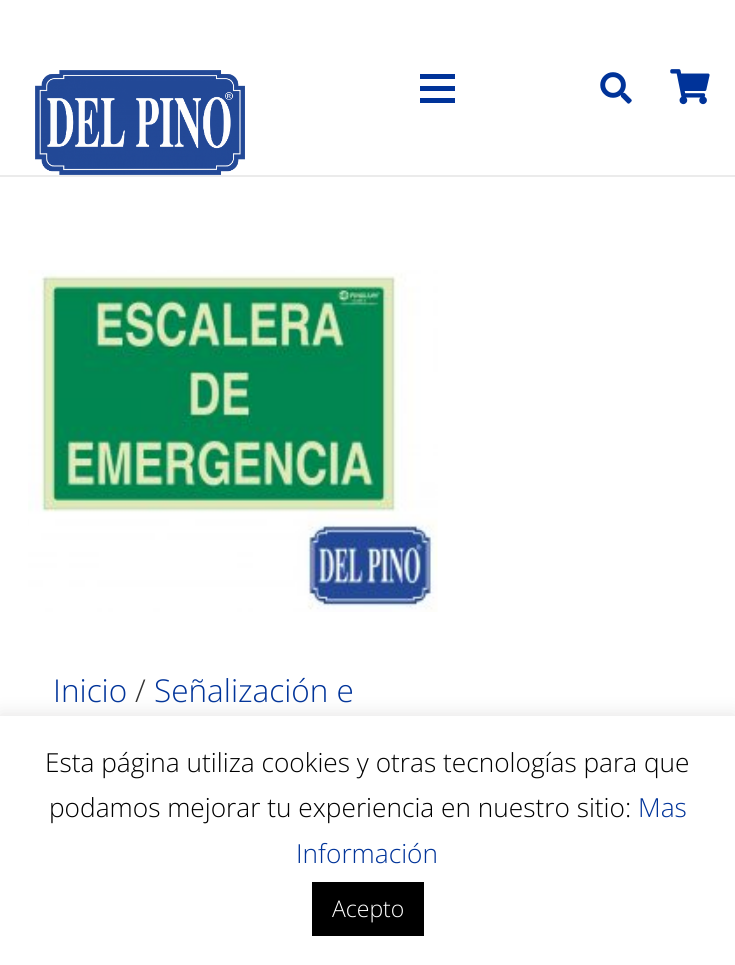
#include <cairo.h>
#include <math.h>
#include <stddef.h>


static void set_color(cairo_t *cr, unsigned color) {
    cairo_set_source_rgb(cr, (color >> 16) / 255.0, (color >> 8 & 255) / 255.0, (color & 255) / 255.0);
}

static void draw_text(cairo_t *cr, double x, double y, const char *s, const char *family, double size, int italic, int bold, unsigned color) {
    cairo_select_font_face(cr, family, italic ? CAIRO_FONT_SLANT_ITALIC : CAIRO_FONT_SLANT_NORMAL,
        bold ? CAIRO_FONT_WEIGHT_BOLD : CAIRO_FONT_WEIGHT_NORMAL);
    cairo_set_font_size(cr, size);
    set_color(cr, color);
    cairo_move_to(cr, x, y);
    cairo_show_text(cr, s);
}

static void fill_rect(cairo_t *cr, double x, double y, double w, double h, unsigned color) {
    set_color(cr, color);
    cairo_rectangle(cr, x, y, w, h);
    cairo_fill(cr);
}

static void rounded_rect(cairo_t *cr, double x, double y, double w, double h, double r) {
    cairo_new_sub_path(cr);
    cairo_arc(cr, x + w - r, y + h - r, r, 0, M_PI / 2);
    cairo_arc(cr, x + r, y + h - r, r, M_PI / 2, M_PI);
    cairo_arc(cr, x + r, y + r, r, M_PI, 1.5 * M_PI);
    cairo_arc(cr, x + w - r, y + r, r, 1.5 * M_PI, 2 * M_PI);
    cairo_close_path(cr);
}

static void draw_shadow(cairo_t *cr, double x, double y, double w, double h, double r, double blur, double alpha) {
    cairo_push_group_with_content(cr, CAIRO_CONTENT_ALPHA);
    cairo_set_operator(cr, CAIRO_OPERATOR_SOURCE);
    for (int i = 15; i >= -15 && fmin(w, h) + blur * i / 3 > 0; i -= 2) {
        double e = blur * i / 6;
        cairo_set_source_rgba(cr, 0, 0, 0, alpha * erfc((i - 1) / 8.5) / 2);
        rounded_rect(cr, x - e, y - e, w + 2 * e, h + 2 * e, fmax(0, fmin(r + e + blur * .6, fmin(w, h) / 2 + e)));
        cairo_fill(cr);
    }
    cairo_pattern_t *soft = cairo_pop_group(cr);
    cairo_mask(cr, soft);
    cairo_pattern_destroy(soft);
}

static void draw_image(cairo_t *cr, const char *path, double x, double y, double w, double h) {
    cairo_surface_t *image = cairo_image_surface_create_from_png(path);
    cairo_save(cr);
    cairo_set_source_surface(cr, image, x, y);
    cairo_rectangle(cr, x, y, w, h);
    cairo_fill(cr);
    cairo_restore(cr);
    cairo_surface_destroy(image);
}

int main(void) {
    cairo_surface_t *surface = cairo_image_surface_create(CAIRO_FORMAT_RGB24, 735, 965);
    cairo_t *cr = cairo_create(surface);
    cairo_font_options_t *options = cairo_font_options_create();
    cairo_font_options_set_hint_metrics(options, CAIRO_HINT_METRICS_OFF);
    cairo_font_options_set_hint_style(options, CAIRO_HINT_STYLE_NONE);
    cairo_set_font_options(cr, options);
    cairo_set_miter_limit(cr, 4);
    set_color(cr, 0xFFFFFF);
    cairo_paint(cr);
    fill_rect(cr, 0, 175, 735, 2, 0xEBEBEB);
    draw_image(cr, "assets/img1.png", 35, 70, 210, 105);
    fill_rect(cr, 420, 86, 35, 5, 0x003399);
    fill_rect(cr, 420, 74, 35, 5, 0x003399);
    fill_rect(cr, 420, 98, 35, 5, 0x003399);
    draw_image(cr, "assets/img2.png", 600, 72, 32, 32);
    draw_image(cr, "assets/img3.png", 670, 69, 40, 36);
    draw_image(cr, "assets/img4.png", 28, 270, 410, 342);
    draw_text(cr, 53, 702, "Inicio", "Open Sans Light", 31.5, 0, 0, 0x003399);
    draw_text(cr, 135, 702, "/", "Open Sans Light", 31.5, 0, 0, 0x333333);
    draw_text(cr, 154, 702, "Señalización e", "Open Sans Light", 31.5, 0, 0, 0x003399);
    set_color(cr, 0xACABAB);
    draw_shadow(cr, 0, 714, 735, 250, 0, 9, 0.3);
    fill_rect(cr, 0, 716, 735, 249, 0xFFFFFF);
    draw_text(cr, 45, 772, "Esta página utiliza cookies y otras tecnologías para que", "Open Sans Light", 26.25, 0, 0, 0x000000);
    draw_text(cr, 49, 817, "podamos mejorar tu experiencia en nuestro sitio:", "Open Sans Light", 26.25, 0, 0, 0x000000);
    draw_text(cr, 638, 817, "Mas", "Open Sans Light", 26.25, 0, 0, 0x003399);
    draw_text(cr, 296, 863, "Información", "Open Sans Light", 26.25, 0, 0, 0x003399);
    fill_rect(cr, 312, 882, 112, 54, 0x000000);
    draw_text(cr, 332, 917, "Acepto", "Open Sans Light", 23, 0, 0, 0xFFFFFF);
    cairo_surface_write_to_png(surface, "output.png");
    cairo_font_options_destroy(options);
    cairo_destroy(cr);
    cairo_surface_destroy(surface);
    return 0;
}
